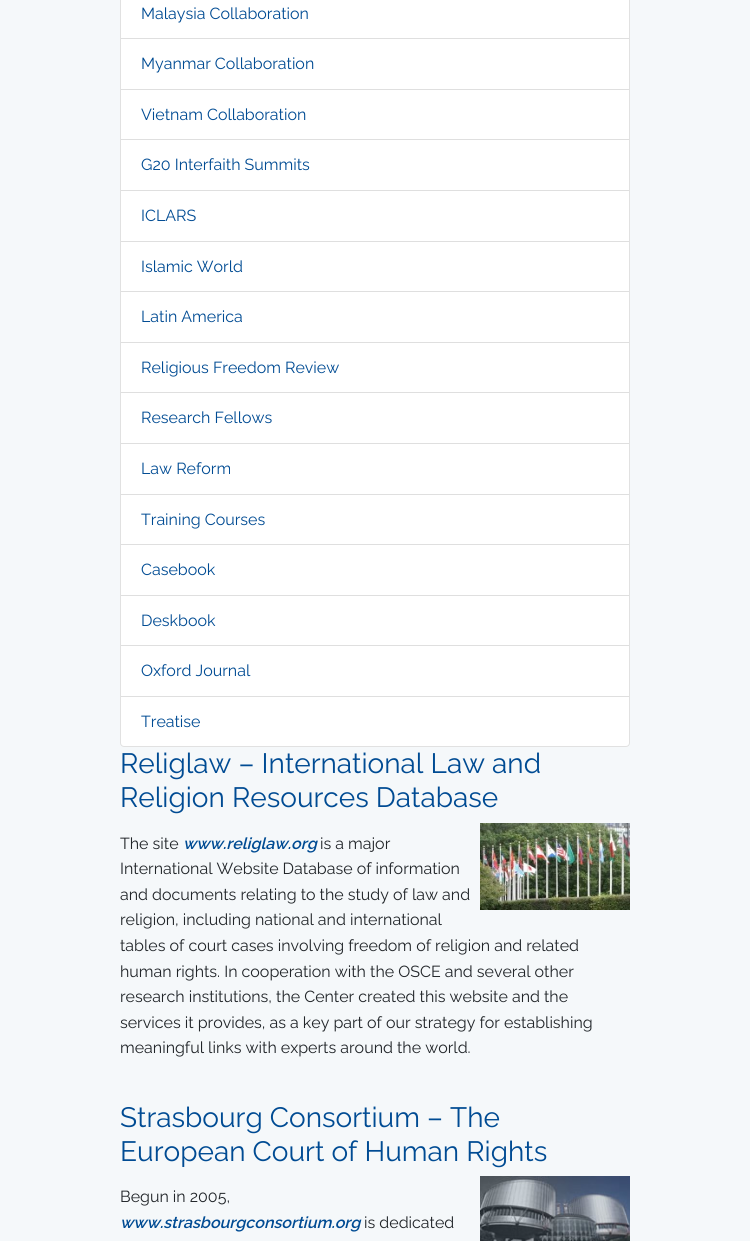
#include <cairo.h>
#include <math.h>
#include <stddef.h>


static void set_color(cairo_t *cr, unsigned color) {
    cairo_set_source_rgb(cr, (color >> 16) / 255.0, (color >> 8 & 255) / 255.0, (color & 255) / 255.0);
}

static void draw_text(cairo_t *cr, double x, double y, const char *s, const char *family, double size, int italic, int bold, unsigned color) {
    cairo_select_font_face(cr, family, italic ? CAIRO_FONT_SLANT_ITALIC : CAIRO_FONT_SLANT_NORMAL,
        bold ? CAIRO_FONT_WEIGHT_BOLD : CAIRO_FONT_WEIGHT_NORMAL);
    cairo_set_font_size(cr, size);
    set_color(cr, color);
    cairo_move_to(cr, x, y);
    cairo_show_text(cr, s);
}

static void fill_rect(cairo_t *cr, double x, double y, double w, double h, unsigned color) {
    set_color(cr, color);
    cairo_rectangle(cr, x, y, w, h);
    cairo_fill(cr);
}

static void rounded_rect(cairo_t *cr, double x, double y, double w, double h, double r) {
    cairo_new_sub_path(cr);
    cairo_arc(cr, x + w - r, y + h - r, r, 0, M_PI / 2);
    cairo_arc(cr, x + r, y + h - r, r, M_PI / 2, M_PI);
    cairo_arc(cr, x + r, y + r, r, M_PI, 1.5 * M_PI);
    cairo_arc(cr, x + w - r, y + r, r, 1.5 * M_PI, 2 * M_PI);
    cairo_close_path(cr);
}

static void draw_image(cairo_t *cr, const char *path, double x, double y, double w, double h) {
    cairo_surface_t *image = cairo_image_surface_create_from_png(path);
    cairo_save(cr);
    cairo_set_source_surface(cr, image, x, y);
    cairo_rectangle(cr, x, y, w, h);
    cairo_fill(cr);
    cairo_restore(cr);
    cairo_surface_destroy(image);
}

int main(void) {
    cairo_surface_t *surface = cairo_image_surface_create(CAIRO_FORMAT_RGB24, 750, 1241);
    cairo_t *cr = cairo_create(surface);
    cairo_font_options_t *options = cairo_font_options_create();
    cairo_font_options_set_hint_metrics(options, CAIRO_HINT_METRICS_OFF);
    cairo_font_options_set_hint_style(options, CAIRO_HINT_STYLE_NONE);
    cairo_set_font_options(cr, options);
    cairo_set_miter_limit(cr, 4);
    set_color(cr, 0xF5F8FA);
    cairo_paint(cr);
    set_color(cr, 0xFFFFFF);
    rounded_rect(cr, 120, -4, 510, 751, 4);
    cairo_fill(cr);
    rounded_rect(cr, 120.5, -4.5, 509, 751, 3.5);
    cairo_set_source_rgba(cr, 0, 0, 0, 0.12);
    cairo_set_line_width(cr, 1);
    cairo_stroke(cr);
    draw_text(cr, 141, 19, "Malaysia Collaboration", "Raleway", 16, 0, 0, 0x004B93);
    fill_rect(cr, 121, 38, 508, 1, 0xDFDFDF);
    draw_text(cr, 141, 69, "Myanmar Collaboration", "Raleway", 16, 0, 0, 0x004B93);
    fill_rect(cr, 121, 89, 508, 1, 0xDFDFDF);
    draw_text(cr, 141, 120, "Vietnam Collaboration", "Raleway", 16, 0, 0, 0x004B93);
    fill_rect(cr, 121, 139, 508, 1, 0xDFDFDF);
    draw_text(cr, 141, 170, "G20 Interfaith Summits", "Raleway", 16, 0, 0, 0x004B93);
    fill_rect(cr, 121, 190, 508, 1, 0xDFDFDF);
    draw_text(cr, 141, 221, "ICLARS", "Raleway", 16, 0, 0, 0x004B93);
    fill_rect(cr, 121, 241, 508, 1, 0xDFDFDF);
    draw_text(cr, 141, 272, "Islamic World", "Raleway", 16, 0, 0, 0x004B93);
    fill_rect(cr, 121, 291, 508, 1, 0xDFDFDF);
    draw_text(cr, 141, 322, "Latin America", "Raleway", 16, 0, 0, 0x004B93);
    fill_rect(cr, 121, 342, 508, 1, 0xDFDFDF);
    draw_text(cr, 141, 373, "Religious Freedom Review", "Raleway", 16, 0, 0, 0x004B93);
    fill_rect(cr, 121, 392, 508, 1, 0xDFDFDF);
    draw_text(cr, 141, 423, "Research Fellows", "Raleway", 16, 0, 0, 0x004B93);
    fill_rect(cr, 121, 443, 508, 1, 0xDFDFDF);
    draw_text(cr, 141, 474, "Law Reform", "Raleway", 16, 0, 0, 0x004B93);
    fill_rect(cr, 121, 494, 508, 1, 0xDFDFDF);
    draw_text(cr, 141, 525, "Training Courses", "Raleway", 16, 0, 0, 0x004B93);
    fill_rect(cr, 121, 544, 508, 1, 0xDFDFDF);
    draw_text(cr, 141, 575, "Casebook", "Raleway", 16, 0, 0, 0x004B93);
    fill_rect(cr, 121, 595, 508, 1, 0xDFDFDF);
    draw_text(cr, 141, 626, "Deskbook", "Raleway", 16, 0, 0, 0x004B93);
    fill_rect(cr, 121, 645, 508, 1, 0xDFDFDF);
    draw_text(cr, 141, 676, "Oxford Journal", "Raleway", 16, 0, 0, 0x004B93);
    fill_rect(cr, 121, 696, 508, 1, 0xDFDFDF);
    draw_text(cr, 141, 727, "Treatise", "Raleway", 16, 0, 0, 0x004B93);
    draw_text(cr, 120, 773, "Religlaw – International Law and", "Raleway", 28, 0, 0, 0x004B93);
    draw_text(cr, 120, 807, "Religion Resources Database", "Raleway", 28, 0, 0, 0x004B93);
    draw_image(cr, "assets/img1.png", 480, 823, 150, 87);
    draw_text(cr, 120, 849, "The site", "Raleway", 16, 0, 0, 0x212529);
    draw_text(cr, 183, 849, "www.religlaw.org", "Raleway SemiBold", 16, 1, 0, 0x004B93);
    draw_text(cr, 320, 849, "is a major", "Raleway", 16, 0, 0, 0x212529);
    draw_text(cr, 120, 874, "International Website Database of information", "Raleway", 16, 0, 0, 0x212529);
    draw_text(cr, 120, 900, "and documents relating to the study of law and", "Raleway", 16, 0, 0, 0x212529);
    draw_text(cr, 120, 925, "religion, including national and international", "Raleway", 16, 0, 0, 0x212529);
    draw_text(cr, 120, 951, "tables of court cases involving freedom of religion and related", "Raleway", 16, 0, 0, 0x212529);
    draw_text(cr, 120, 977, "human rights. In cooperation with the OSCE and several other", "Raleway", 16, 0, 0, 0x212529);
    draw_text(cr, 120, 1002, "research institutions, the Center created this website and the", "Raleway", 16, 0, 0, 0x212529);
    draw_text(cr, 120, 1028, "services it provides, as a key part of our strategy for establishing", "Raleway", 16, 0, 0, 0x212529);
    draw_text(cr, 120, 1053, "meaningful links with experts around the world.", "Raleway", 16, 0, 0, 0x212529);
    draw_text(cr, 120, 1127, "Strasbourg Consortium – The", "Raleway", 28, 0, 0, 0x004B93);
    draw_text(cr, 120, 1161, "European Court of Human Rights", "Raleway", 28, 0, 0, 0x004B93);
    draw_text(cr, 120, 1202, "Begun in 2005,", "Raleway", 16, 0, 0, 0x212529);
    draw_text(cr, 120, 1228, "www.strasbourgconsortium.org", "Raleway SemiBold", 16, 1, 0, 0x004B93);
    draw_text(cr, 364, 1228, "is dedicated", "Raleway", 16, 0, 0, 0x212529);
    draw_image(cr, "assets/img2.png", 480, 1176, 150, 65);
    cairo_surface_write_to_png(surface, "output.png");
    cairo_font_options_destroy(options);
    cairo_destroy(cr);
    cairo_surface_destroy(surface);
    return 0;
}
